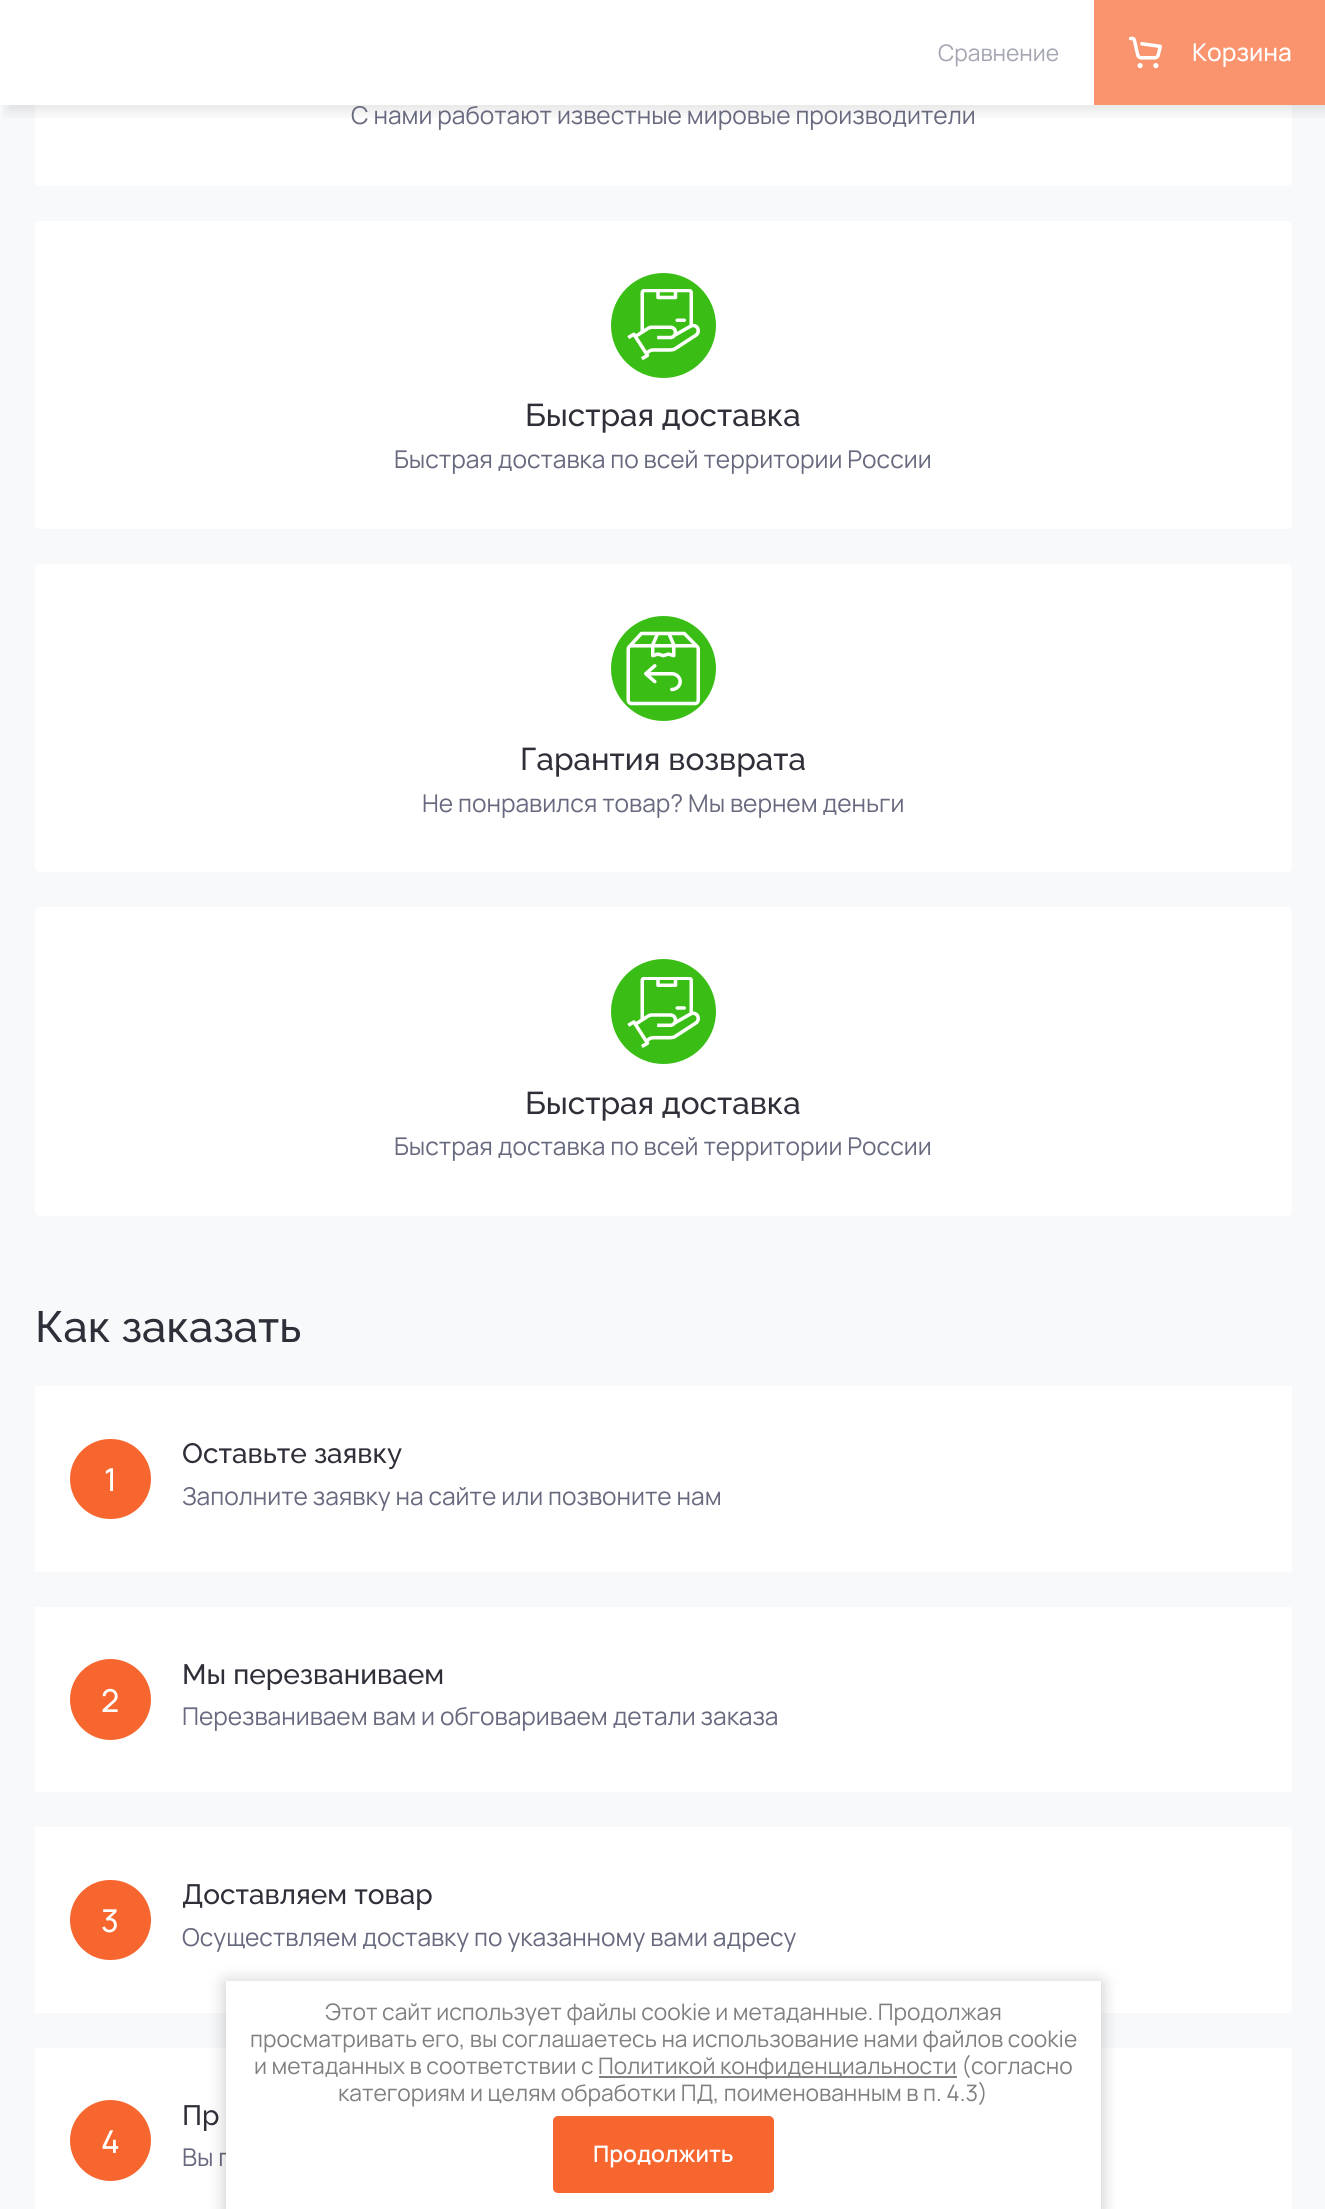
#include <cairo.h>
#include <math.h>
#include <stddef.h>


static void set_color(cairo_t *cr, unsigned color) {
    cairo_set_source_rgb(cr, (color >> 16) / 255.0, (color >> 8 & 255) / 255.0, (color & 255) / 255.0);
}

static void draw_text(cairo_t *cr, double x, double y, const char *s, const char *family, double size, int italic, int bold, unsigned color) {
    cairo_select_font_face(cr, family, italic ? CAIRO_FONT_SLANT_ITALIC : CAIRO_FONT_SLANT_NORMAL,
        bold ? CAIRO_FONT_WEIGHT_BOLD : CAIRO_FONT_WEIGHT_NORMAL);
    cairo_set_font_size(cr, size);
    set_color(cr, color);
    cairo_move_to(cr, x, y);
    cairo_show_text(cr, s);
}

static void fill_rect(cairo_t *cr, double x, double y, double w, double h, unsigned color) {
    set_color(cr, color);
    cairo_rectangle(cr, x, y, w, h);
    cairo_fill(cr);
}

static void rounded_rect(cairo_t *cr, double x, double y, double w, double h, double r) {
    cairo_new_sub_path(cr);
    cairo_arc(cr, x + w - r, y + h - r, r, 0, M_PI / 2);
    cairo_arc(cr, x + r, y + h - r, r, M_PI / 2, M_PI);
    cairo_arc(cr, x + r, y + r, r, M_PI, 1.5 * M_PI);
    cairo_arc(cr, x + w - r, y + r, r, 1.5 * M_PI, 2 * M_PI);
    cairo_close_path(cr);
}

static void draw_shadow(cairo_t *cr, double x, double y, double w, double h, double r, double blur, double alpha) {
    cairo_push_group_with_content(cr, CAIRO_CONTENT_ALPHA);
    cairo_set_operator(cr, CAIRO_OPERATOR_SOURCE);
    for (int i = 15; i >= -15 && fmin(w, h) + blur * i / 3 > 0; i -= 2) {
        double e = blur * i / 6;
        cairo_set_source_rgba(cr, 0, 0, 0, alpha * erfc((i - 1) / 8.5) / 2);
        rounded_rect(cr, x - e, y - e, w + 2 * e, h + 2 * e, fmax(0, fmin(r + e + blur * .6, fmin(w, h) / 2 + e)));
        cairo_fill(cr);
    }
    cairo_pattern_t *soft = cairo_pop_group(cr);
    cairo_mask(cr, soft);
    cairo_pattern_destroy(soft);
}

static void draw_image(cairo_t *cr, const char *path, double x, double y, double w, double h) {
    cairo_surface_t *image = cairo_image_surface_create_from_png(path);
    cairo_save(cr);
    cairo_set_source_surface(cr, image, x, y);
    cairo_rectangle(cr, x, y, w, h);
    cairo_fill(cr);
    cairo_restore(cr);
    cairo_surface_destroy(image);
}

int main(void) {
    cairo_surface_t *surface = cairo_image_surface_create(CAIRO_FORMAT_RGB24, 1325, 2209);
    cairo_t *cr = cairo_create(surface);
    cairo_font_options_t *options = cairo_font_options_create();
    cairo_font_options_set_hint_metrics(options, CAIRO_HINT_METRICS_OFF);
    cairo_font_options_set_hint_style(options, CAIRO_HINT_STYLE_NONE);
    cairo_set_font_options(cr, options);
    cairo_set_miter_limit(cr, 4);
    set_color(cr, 0xF8F9FB);
    cairo_paint(cr);
    fill_rect(cr, 0, 0, 35, 105, 0xFFFFFF);
    rounded_rect(cr, 35, -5, 1257, 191, 5);
    cairo_fill(cr);
    cairo_save(cr);
    cairo_rectangle(cr, 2, 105, 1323, 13);
    cairo_clip(cr);
    set_color(cr, 0x000000);
    draw_shadow(cr, 7, 7, 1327, 105, 0, 7, 0.1);
    cairo_restore(cr);
    draw_text(cr, 938, 61, "Сравнение", "Manrope", 22.75, 0, 0, 0xA4A5B2);
    fill_rect(cr, 1094, 0, 231, 105, 0xFA946E);
    draw_image(cr, "assets/img1.png", 1129, 36, 33, 33);
    draw_text(cr, 1192, 61, "Корзина", "Manrope Medium", 24.5, 0, 0, 0xFFFFFF);
    draw_text(cr, 351, 124, "С нами работают известные мировые производители", "Manrope", 24.5, 0, 0, 0x67697E);
    set_color(cr, 0xFFFFFF);
    rounded_rect(cr, 35, 221, 1257, 308, 5);
    cairo_fill(cr);
    set_color(cr, 0x3ABE16);
    cairo_arc(cr, 663.5, 325.5, 52.5, 0, 2 * M_PI);
    cairo_fill(cr);
    draw_image(cr, "assets/img2.png", 627, 289, 73, 72);
    draw_text(cr, 525, 426, "Быстрая доставка", "Raleway Medium", 31.5, 0, 0, 0x2E2F38);
    draw_text(cr, 394, 468, "Быстрая доставка по всей территории России", "Manrope", 24.5, 0, 0, 0x67697E);
    set_color(cr, 0xFFFFFF);
    rounded_rect(cr, 35, 564, 1257, 308, 5);
    cairo_fill(cr);
    set_color(cr, 0x3ABE16);
    cairo_arc(cr, 663.5, 668.5, 52.5, 0, 2 * M_PI);
    cairo_fill(cr);
    draw_image(cr, "assets/img3.png", 626, 631, 74, 75);
    draw_text(cr, 520, 770, "Гарантия возврата", "Raleway Medium", 31.5, 0, 0, 0x2E2F38);
    draw_text(cr, 422, 812, "Не понравился товар? Мы вернем деньги", "Manrope", 24.5, 0, 0, 0x67697E);
    set_color(cr, 0xFFFFFF);
    rounded_rect(cr, 35, 907, 1257, 309, 5);
    cairo_fill(cr);
    set_color(cr, 0x3ABE16);
    cairo_arc(cr, 663.5, 1011.5, 52.5, 0, 2 * M_PI);
    cairo_fill(cr);
    draw_image(cr, "assets/img4.png", 627, 977, 73, 71);
    draw_text(cr, 525, 1114, "Быстрая доставка", "Raleway Medium", 31.5, 0, 0, 0x2E2F38);
    draw_text(cr, 394, 1155, "Быстрая доставка по всей территории России", "Manrope", 24.5, 0, 0, 0x67697E);
    draw_text(cr, 35, 1342, "Как заказать", "Raleway Medium", 43.75, 0, 0, 0x2E2F38);
    fill_rect(cr, 35, 1386, 1257, 186, 0xFFFFFF);
    set_color(cr, 0xF86630);
    rounded_rect(cr, 70, 1439, 81, 80, 40);
    cairo_fill(cr);
    draw_text(cr, 104, 1491, "1", "Manrope Medium", 31.5, 0, 0, 0xFFFFFF);
    draw_text(cr, 182, 1463, "Оставьте заявку", "Raleway Medium", 28, 0, 0, 0x2E2F38);
    draw_text(cr, 182, 1505, "Заполните заявку на сайте или позвоните нам", "Manrope", 24.5, 0, 0, 0x67697E);
    fill_rect(cr, 35, 1607, 1257, 185, 0xFFFFFF);
    set_color(cr, 0xF86630);
    cairo_new_path(cr);
    cairo_arc(cr, 110.5, 1699.5, 40.5, 0, 2 * M_PI);
    cairo_fill(cr);
    draw_text(cr, 101, 1712, "2", "Manrope Medium", 31.5, 0, 0, 0xFFFFFF);
    draw_text(cr, 182, 1684, "Мы перезваниваем", "Raleway Medium", 28, 0, 0, 0x2E2F38);
    draw_text(cr, 182, 1725, "Перезваниваем вам и обговариваем детали заказа", "Manrope", 24.5, 0, 0, 0x67697E);
    fill_rect(cr, 35, 1827, 1257, 186, 0xFFFFFF);
    set_color(cr, 0xF86630);
    rounded_rect(cr, 70, 1880, 81, 80, 40);
    cairo_fill(cr);
    draw_text(cr, 101, 1932, "3", "Manrope Medium", 31.5, 0, 0, 0xFFFFFF);
    draw_text(cr, 182, 1904, "Доставляем товар", "Raleway Medium", 28, 0, 0, 0x2E2F38);
    draw_text(cr, 182, 1946, "Осуществляем доставку по указанному вами адресу", "Manrope", 24.5, 0, 0, 0x67697E);
    fill_rect(cr, 35, 2048, 1257, 161, 0xFFFFFF);
    set_color(cr, 0xF86630);
    cairo_new_path(cr);
    cairo_arc(cr, 110.5, 2140.5, 40.5, 0, 2 * M_PI);
    cairo_fill(cr);
    draw_text(cr, 101, 2153, "4", "Manrope Medium", 31.5, 0, 0, 0xFFFFFF);
    draw_text(cr, 182, 2125, "Пр", "Raleway Medium", 28, 0, 0, 0x2E2F38);
    draw_text(cr, 182, 2166, "Вы п", "Manrope", 24.5, 0, 0, 0x67697E);
    set_color(cr, 0x000000);
    draw_shadow(cr, 226, 1983, 875, 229, 0, 9, 0.23);
    fill_rect(cr, 226, 1981, 875, 228, 0xFFFFFF);
    draw_text(cr, 325, 2020, "Этот сайт использует файлы cookie и метаданные. Продолжая", "Manrope", 22.75, 0, 0, 0x808080);
    draw_text(cr, 250, 2047, "просматривать его, вы соглашаетесь на использование нами файлов cookie", "Manrope", 22.75, 0, 0, 0x808080);
    draw_text(cr, 254, 2074, "и метаданных в соответствии с", "Manrope", 22.75, 0, 0, 0x808080);
    fill_rect(cr, 599, 2076, 358, 2, 0x808080);
    draw_text(cr, 598, 2074, "Политикой конфиденциальности (согласно", "Manrope", 22.75, 0, 0, 0x808080);
    draw_text(cr, 338, 2101, "категориям и целям обработки ПД, поименованным в п. 4.3)", "Manrope", 22.75, 0, 0, 0x808080);
    set_color(cr, 0xF86630);
    rounded_rect(cr, 553, 2116, 221, 77, 5);
    cairo_fill(cr);
    draw_text(cr, 593, 2162, "Продолжить", "Manrope SemiBold", 22.75, 0, 0, 0xFFFFFF);
    cairo_surface_write_to_png(surface, "output.png");
    cairo_font_options_destroy(options);
    cairo_destroy(cr);
    cairo_surface_destroy(surface);
    return 0;
}
